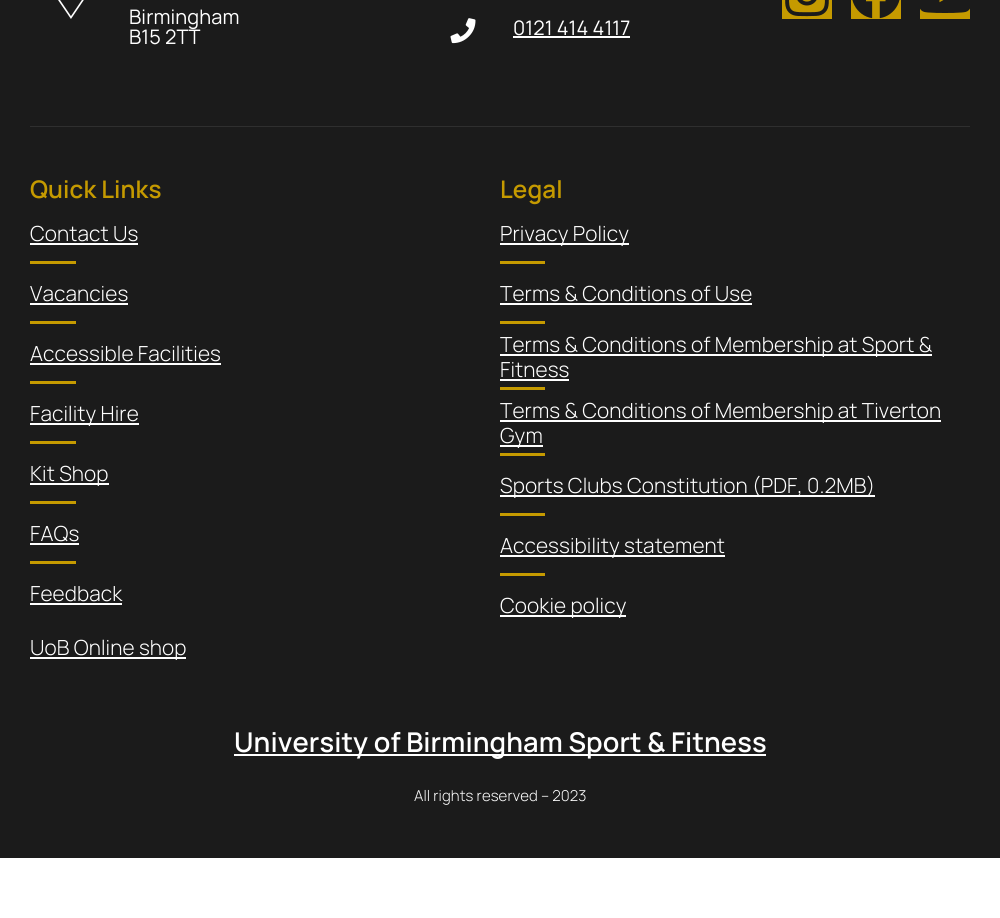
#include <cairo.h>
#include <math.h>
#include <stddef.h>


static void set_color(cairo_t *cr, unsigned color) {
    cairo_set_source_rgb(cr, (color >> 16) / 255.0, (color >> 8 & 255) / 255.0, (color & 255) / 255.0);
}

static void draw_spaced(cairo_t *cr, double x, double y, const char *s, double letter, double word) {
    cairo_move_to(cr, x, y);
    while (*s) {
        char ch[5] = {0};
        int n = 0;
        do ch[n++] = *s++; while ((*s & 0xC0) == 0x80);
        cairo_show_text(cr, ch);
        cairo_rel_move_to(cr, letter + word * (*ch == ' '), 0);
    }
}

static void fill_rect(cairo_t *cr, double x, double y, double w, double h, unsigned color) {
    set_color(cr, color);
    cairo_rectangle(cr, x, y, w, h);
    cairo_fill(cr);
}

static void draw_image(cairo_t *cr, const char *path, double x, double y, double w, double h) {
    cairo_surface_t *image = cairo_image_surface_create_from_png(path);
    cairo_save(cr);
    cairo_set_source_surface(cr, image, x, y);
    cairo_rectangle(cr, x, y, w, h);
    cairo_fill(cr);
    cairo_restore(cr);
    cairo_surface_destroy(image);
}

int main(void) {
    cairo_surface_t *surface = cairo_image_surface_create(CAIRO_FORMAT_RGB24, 1000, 918);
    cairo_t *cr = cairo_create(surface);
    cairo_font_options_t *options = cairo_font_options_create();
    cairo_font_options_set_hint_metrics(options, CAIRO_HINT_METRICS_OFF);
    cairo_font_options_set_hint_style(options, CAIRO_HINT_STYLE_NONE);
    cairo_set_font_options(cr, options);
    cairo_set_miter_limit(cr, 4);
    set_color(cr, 0xFFFFFF);
    cairo_paint(cr);
    fill_rect(cr, 0, 0, 1000, 858, 0x1B1B1B);
    draw_image(cr, "assets/img1.png", 58, 0, 26, 19);
    cairo_select_font_face(cr, "Manrope", CAIRO_FONT_SLANT_NORMAL, CAIRO_FONT_WEIGHT_NORMAL);
    cairo_set_font_size(cr, 20);
    set_color(cr, 0xFFFFFF);
    draw_spaced(cr, 129, 24, "Birmingham", 0.1, 0);
    draw_spaced(cr, 129, 44, "B15 2TT", 0.1, 0);
    draw_image(cr, "assets/img2.png", 450, 18, 26, 26);
    draw_spaced(cr, 513, 35, "0121 414 4117", 0.1, 0);
    fill_rect(cr, 513, 36, 117, 2, 0xFFFFFF);
    fill_rect(cr, 782, 0, 50, 19, 0xC59A00);
    draw_image(cr, "assets/img3.png", 785, 0, 44, 17);
    fill_rect(cr, 851, 0, 50, 19, 0xC59A00);
    draw_image(cr, "assets/img4.png", 852, 0, 48, 19);
    fill_rect(cr, 920, 0, 50, 19, 0xC59A00);
    draw_image(cr, "assets/img5.png", 920, 0, 50, 13);
    fill_rect(cr, 30, 126, 940, 1, 0x2F2F2F);
    cairo_select_font_face(cr, "Manrope SemiBold", CAIRO_FONT_SLANT_NORMAL, CAIRO_FONT_WEIGHT_NORMAL);
    cairo_set_font_size(cr, 24.25);
    set_color(cr, 0xC59A00);
    draw_spaced(cr, 30, 198, "Quick Links", 0.1, 0);
    cairo_select_font_face(cr, "Manrope Light", CAIRO_FONT_SLANT_NORMAL, CAIRO_FONT_WEIGHT_NORMAL);
    cairo_set_font_size(cr, 20.8);
    set_color(cr, 0xFFFFFF);
    draw_spaced(cr, 30, 241, "Contact Us", 0.1, 0);
    fill_rect(cr, 30, 243, 108, 2, 0xFFFFFF);
    fill_rect(cr, 30, 261, 46, 3, 0xC59A00);
    set_color(cr, 0xFFFFFF);
    draw_spaced(cr, 30, 301, "Vacancies", 0.1, 0);
    fill_rect(cr, 30, 303, 98, 2, 0xFFFFFF);
    fill_rect(cr, 30, 321, 46, 3, 0xC59A00);
    set_color(cr, 0xFFFFFF);
    draw_spaced(cr, 30, 361, "Accessible Facilities", 0.1, 0);
    fill_rect(cr, 30, 363, 191, 2, 0xFFFFFF);
    fill_rect(cr, 30, 381, 46, 3, 0xC59A00);
    fill_rect(cr, 30, 423, 109, 2, 0xFFFFFF);
    draw_spaced(cr, 30, 421, "Facility Hire", 0.1, 0);
    fill_rect(cr, 30, 441, 46, 3, 0xC59A00);
    fill_rect(cr, 30, 483, 79, 2, 0xFFFFFF);
    draw_spaced(cr, 30, 481, "Kit Shop", 0.1, 0);
    fill_rect(cr, 30, 501, 46, 3, 0xC59A00);
    set_color(cr, 0xFFFFFF);
    draw_spaced(cr, 30, 541, "FAQs", 0.1, 0);
    fill_rect(cr, 30, 543, 49, 2, 0xFFFFFF);
    fill_rect(cr, 30, 561, 46, 3, 0xC59A00);
    set_color(cr, 0xFFFFFF);
    draw_spaced(cr, 30, 601, "Feedback", 0.1, 0);
    fill_rect(cr, 30, 603, 92, 2, 0xFFFFFF);
    fill_rect(cr, 30, 657, 156, 2, 0xFFFFFF);
    draw_spaced(cr, 30, 655, "UoB Online shop", 0.1, 0);
    cairo_select_font_face(cr, "Manrope SemiBold", CAIRO_FONT_SLANT_NORMAL, CAIRO_FONT_WEIGHT_NORMAL);
    cairo_set_font_size(cr, 24.25);
    set_color(cr, 0xC59A00);
    draw_spaced(cr, 500, 198, "Legal", 0.1, 0);
    fill_rect(cr, 500, 243, 129, 2, 0xFFFFFF);
    cairo_select_font_face(cr, "Manrope Light", CAIRO_FONT_SLANT_NORMAL, CAIRO_FONT_WEIGHT_NORMAL);
    cairo_set_font_size(cr, 20.8);
    draw_spaced(cr, 500, 241, "Privacy Policy", 0.1, 0);
    fill_rect(cr, 500, 261, 45, 3, 0xC59A00);
    set_color(cr, 0xFFFFFF);
    draw_spaced(cr, 500, 301, "Terms & Conditions of Use", 0.1, 0);
    fill_rect(cr, 500, 303, 252, 2, 0xFFFFFF);
    fill_rect(cr, 500, 321, 45, 3, 0xC59A00);
    fill_rect(cr, 500, 354, 432, 2, 0xFFFFFF);
    draw_spaced(cr, 500, 352, "Terms & Conditions of Membership at Sport &", 0.1, 0);
    draw_spaced(cr, 500, 377, "Fitness", 0.1, 0);
    fill_rect(cr, 500, 379, 69, 2, 0xFFFFFF);
    fill_rect(cr, 500, 387, 45, 3, 0xC59A00);
    fill_rect(cr, 500, 420, 441, 2, 0xFFFFFF);
    draw_spaced(cr, 500, 418, "Terms & Conditions of Membership at Tiverton", 0.1, 0);
    fill_rect(cr, 500, 445, 43, 2, 0xFFFFFF);
    draw_spaced(cr, 500, 443, "Gym", 0.1, 0);
    fill_rect(cr, 500, 453, 45, 3, 0xC59A00);
    fill_rect(cr, 500, 495, 375, 2, 0xFFFFFF);
    draw_spaced(cr, 500, 493, "Sports Clubs Constitution (PDF, 0.2MB)", 0.1, 0);
    fill_rect(cr, 500, 513, 45, 3, 0xC59A00);
    fill_rect(cr, 500, 555, 225, 2, 0xFFFFFF);
    draw_spaced(cr, 500, 553, "Accessibility statement", 0.1, 0);
    fill_rect(cr, 500, 573, 45, 3, 0xC59A00);
    fill_rect(cr, 500, 615, 126, 2, 0xFFFFFF);
    draw_spaced(cr, 500, 613, "Cookie policy", 0.1, 0);
    fill_rect(cr, 234, 754, 532, 2, 0xFFFFFF);
    cairo_select_font_face(cr, "Manrope SemiBold", CAIRO_FONT_SLANT_NORMAL, CAIRO_FONT_WEIGHT_NORMAL);
    cairo_set_font_size(cr, 27.25);
    draw_spaced(cr, 234, 752, "University of Birmingham Sport & Fitness", 0.1, 0);
    cairo_select_font_face(cr, "Manrope Light", CAIRO_FONT_SLANT_NORMAL, CAIRO_FONT_WEIGHT_NORMAL);
    cairo_set_font_size(cr, 15);
    draw_spaced(cr, 414, 801, "All rights reserved – 2023", 0.1, 0);
    cairo_surface_write_to_png(surface, "output.png");
    cairo_font_options_destroy(options);
    cairo_destroy(cr);
    cairo_surface_destroy(surface);
    return 0;
}
